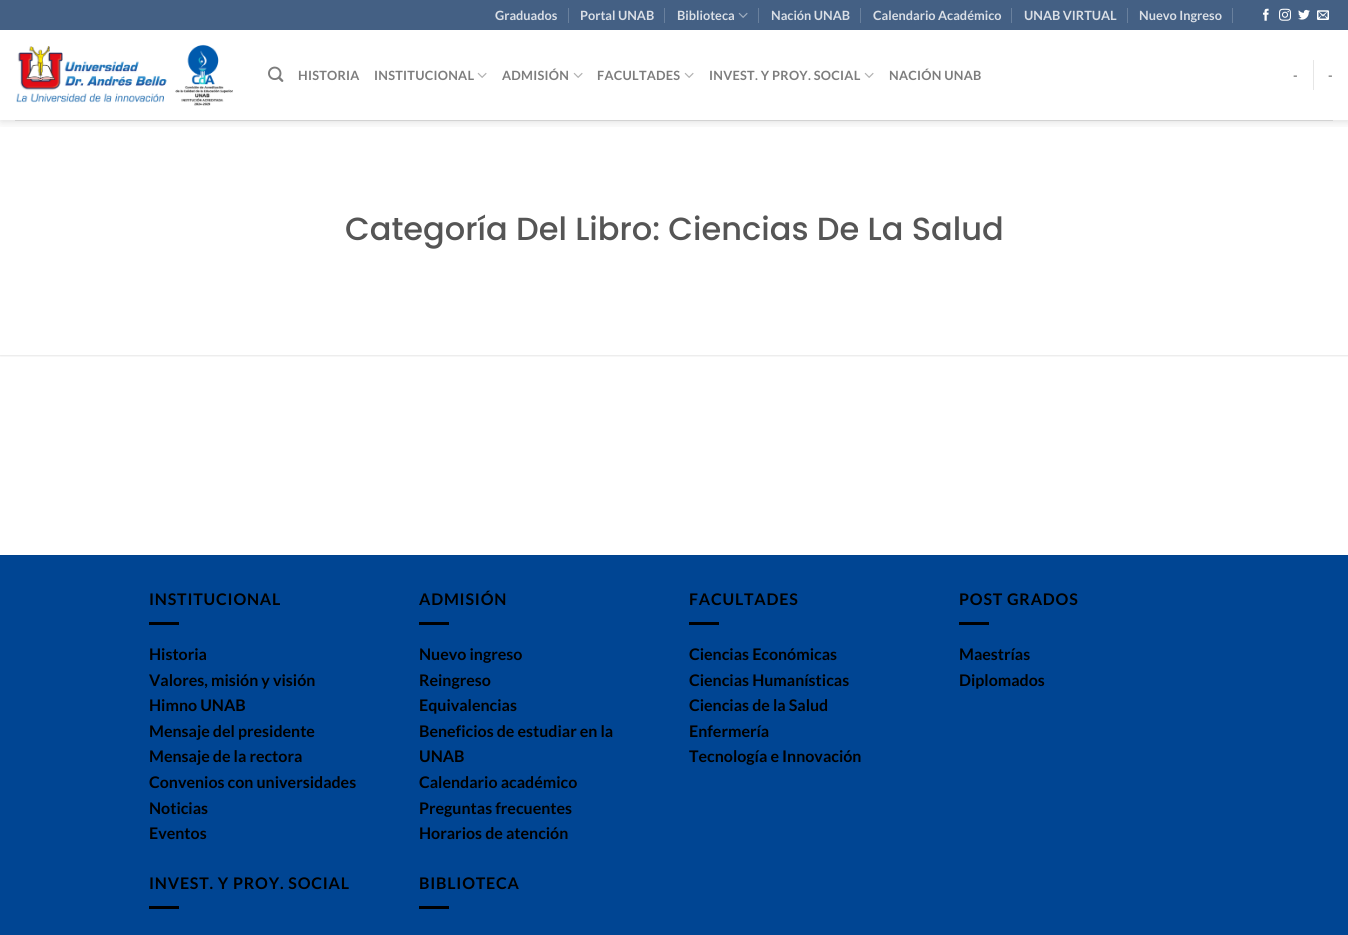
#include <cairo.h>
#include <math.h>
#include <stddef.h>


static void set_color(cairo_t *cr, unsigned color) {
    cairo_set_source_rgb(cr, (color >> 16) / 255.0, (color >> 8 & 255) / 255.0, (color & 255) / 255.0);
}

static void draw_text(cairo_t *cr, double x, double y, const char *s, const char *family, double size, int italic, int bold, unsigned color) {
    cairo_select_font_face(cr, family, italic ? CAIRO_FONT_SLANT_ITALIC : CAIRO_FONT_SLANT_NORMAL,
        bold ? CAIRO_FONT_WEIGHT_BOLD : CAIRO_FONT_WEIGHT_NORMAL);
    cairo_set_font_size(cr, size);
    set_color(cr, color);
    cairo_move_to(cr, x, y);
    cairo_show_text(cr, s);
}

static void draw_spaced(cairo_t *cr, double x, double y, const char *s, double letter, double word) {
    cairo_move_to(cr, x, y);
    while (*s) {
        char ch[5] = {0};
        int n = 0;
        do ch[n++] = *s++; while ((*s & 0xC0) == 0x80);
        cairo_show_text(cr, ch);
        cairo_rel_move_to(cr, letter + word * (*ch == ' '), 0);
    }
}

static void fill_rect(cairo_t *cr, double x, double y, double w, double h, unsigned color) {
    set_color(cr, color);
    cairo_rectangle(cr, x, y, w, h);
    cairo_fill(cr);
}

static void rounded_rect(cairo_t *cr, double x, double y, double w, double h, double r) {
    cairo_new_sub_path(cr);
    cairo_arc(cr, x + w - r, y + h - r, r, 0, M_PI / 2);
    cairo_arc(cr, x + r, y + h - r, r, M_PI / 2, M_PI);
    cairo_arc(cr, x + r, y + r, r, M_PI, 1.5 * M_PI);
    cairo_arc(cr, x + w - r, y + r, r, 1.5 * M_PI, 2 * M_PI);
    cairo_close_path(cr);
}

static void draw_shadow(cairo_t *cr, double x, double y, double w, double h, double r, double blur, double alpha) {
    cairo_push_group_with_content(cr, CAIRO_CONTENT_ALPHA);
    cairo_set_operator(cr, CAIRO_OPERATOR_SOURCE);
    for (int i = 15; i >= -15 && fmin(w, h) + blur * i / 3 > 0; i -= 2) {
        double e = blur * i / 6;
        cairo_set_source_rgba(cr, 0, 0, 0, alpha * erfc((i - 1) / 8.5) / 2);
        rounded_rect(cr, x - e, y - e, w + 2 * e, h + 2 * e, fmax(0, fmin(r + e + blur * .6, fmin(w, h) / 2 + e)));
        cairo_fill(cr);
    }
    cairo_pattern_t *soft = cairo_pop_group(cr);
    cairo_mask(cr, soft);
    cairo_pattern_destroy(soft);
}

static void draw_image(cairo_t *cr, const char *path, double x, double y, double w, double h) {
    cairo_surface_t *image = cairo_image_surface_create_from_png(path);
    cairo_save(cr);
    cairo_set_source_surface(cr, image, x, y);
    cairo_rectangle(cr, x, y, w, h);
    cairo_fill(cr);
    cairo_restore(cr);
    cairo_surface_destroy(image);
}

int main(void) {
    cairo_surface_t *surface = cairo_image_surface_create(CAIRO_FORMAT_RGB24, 1348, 935);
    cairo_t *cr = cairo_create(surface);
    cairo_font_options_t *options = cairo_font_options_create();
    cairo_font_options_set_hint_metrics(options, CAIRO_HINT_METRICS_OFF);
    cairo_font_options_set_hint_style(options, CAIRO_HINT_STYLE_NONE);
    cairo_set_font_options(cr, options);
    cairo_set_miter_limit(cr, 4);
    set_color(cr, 0xFFFFFF);
    cairo_paint(cr);
    cairo_save(cr);
    cairo_rectangle(cr, 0, 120, 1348, 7);
    cairo_clip(cr);
    set_color(cr, 0x000000);
    draw_shadow(cr, 1, 1, 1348, 120, 0, 5, 0.15);
    cairo_restore(cr);
    fill_rect(cr, 0, 0, 1348, 30, 0x446084);
    draw_text(cr, 495, 20, "Graduados", "Lato", 12.75, 0, 1, 0xDADFE6);
    fill_rect(cr, 568, 8, 1, 15, 0x69809D);
    draw_text(cr, 580, 20, "Portal UNAB", "Lato", 12.75, 0, 1, 0xDADFE6);
    fill_rect(cr, 664, 8, 1, 15, 0x69809D);
    draw_text(cr, 677, 20, "Biblioteca", "Lato", 12.75, 0, 1, 0xDADFE6);
    draw_image(cr, "assets/img1.png", 738, 12, 10, 6);
    fill_rect(cr, 758, 8, 1, 15, 0x69809D);
    draw_text(cr, 771, 20, "Nación UNAB", "Lato", 12.75, 0, 1, 0xDADFE6);
    fill_rect(cr, 860, 8, 1, 15, 0x69809D);
    draw_text(cr, 873, 20, "Calendario Académico", "Lato", 12.75, 0, 1, 0xDADFE6);
    fill_rect(cr, 1011, 8, 1, 15, 0x69809D);
    draw_text(cr, 1024, 20, "UNAB VIRTUAL", "Lato", 12.75, 0, 1, 0xDADFE6);
    fill_rect(cr, 1127, 8, 1, 15, 0x69809D);
    draw_text(cr, 1139, 20, "Nuevo Ingreso", "Lato", 12.75, 0, 1, 0xDADFE6);
    fill_rect(cr, 1232, 8, 1, 15, 0x69809D);
    draw_image(cr, "assets/img2.png", 1263, 8, 6, 13);
    draw_image(cr, "assets/img3.png", 1279, 8, 12, 13);
    draw_image(cr, "assets/img4.png", 1298, 9, 12, 11);
    draw_image(cr, "assets/img5.png", 1317, 10, 12, 10);
    draw_image(cr, "assets/img6.png", 16, 44, 217, 62);
    draw_image(cr, "assets/img7.png", 268, 66, 16, 16);
    set_color(cr, 0x7D7D7D);
    draw_spaced(cr, 298, 80, "HISTORIA", 0.25, 0);
    draw_spaced(cr, 374, 80, "INSTITUCIONAL", 0.25, 0);
    draw_image(cr, "assets/img8.png", 477, 72, 10, 6);
    draw_spaced(cr, 502, 80, "ADMISIÓN", 0.25, 0);
    draw_image(cr, "assets/img8.png", 573, 72, 10, 6);
    draw_spaced(cr, 597, 80, "FACULTADES", 0.25, 0);
    draw_image(cr, "assets/img8.png", 684, 72, 10, 6);
    draw_spaced(cr, 709, 80, "INVEST. Y PROY. SOCIAL", 0.25, 0);
    draw_image(cr, "assets/img8.png", 864, 72, 10, 6);
    draw_spaced(cr, 889, 80, "NACIÓN UNAB", 0.25, 0);
    draw_spaced(cr, 1293, 80, "-", 0.25, 0);
    fill_rect(cr, 1313, 60, 1, 30, 0xE6E6E6);
    set_color(cr, 0x7D7D7D);
    draw_spaced(cr, 1328, 80, "-", 0.25, 0);
    cairo_save(cr);
    cairo_rectangle(cr, 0, 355, 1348, 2);
    cairo_clip(cr);
    set_color(cr, 0x000000);
    draw_shadow(cr, 0, 121, 1348, 235, 0, 1, 0.1);
    cairo_restore(cr);
    fill_rect(cr, 15, 120, 1318, 1, 0xD3D3D3);
    draw_text(cr, 345, 240, "Categoría Del Libro: Ciencias De La Salud", "Poppins Medium", 32, 0, 0, 0x555555);
    fill_rect(cr, 0, 556, 1348, 379, 0x004593);
    fill_rect(cr, 0, 555, 1348, 1, 0x00428C);
    cairo_select_font_face(cr, "Lato", CAIRO_FONT_SLANT_NORMAL, CAIRO_FONT_WEIGHT_BOLD);
    cairo_set_font_size(cr, 16);
    set_color(cr, 0x000000);
    draw_spaced(cr, 149, 605, "INSTITUCIONAL", 0.8, 0);
    fill_rect(cr, 149, 622, 30, 3, 0x000000);
    draw_text(cr, 149, 660, "Historia", "Lato", 16, 0, 1, 0x000000);
    draw_text(cr, 149, 686, "Valores, misión y visión", "Lato", 16, 0, 1, 0x000000);
    draw_text(cr, 149, 711, "Himno UNAB", "Lato", 16, 0, 1, 0x000000);
    draw_text(cr, 149, 737, "Mensaje del presidente", "Lato", 16, 0, 1, 0x000000);
    draw_text(cr, 149, 762, "Mensaje de la rectora", "Lato", 16, 0, 1, 0x000000);
    draw_text(cr, 149, 788, "Convenios con universidades", "Lato", 16, 0, 1, 0x000000);
    draw_text(cr, 149, 814, "Noticias", "Lato", 16, 0, 1, 0x000000);
    draw_text(cr, 149, 839, "Eventos", "Lato", 16, 0, 1, 0x000000);
    draw_spaced(cr, 419, 605, "ADMISIÓN", 0.8, 0);
    fill_rect(cr, 419, 622, 30, 3, 0x000000);
    draw_text(cr, 419, 660, "Nuevo ingreso", "Lato", 16, 0, 1, 0x000000);
    draw_text(cr, 419, 686, "Reingreso", "Lato", 16, 0, 1, 0x000000);
    draw_text(cr, 419, 711, "Equivalencias", "Lato", 16, 0, 1, 0x000000);
    draw_text(cr, 419, 737, "Beneficios de estudiar en la", "Lato", 16, 0, 1, 0x000000);
    draw_text(cr, 419, 762, "UNAB", "Lato", 16, 0, 1, 0x000000);
    draw_text(cr, 419, 788, "Calendario académico", "Lato", 16, 0, 1, 0x000000);
    draw_text(cr, 419, 814, "Preguntas frecuentes", "Lato", 16, 0, 1, 0x000000);
    draw_text(cr, 419, 839, "Horarios de atención", "Lato", 16, 0, 1, 0x000000);
    draw_spaced(cr, 689, 605, "FACULTADES", 0.8, 0);
    fill_rect(cr, 689, 622, 30, 3, 0x000000);
    draw_text(cr, 689, 660, "Ciencias Económicas", "Lato", 16, 0, 1, 0x000000);
    draw_text(cr, 689, 686, "Ciencias Humanísticas", "Lato", 16, 0, 1, 0x000000);
    draw_text(cr, 689, 711, "Ciencias de la Salud", "Lato", 16, 0, 1, 0x000000);
    draw_text(cr, 689, 737, "Enfermería", "Lato", 16, 0, 1, 0x000000);
    draw_text(cr, 689, 762, "Tecnología e Innovación", "Lato", 16, 0, 1, 0x000000);
    draw_spaced(cr, 959, 605, "POST GRADOS", 0.8, 0);
    fill_rect(cr, 959, 622, 30, 3, 0x000000);
    draw_text(cr, 959, 660, "Maestrías", "Lato", 16, 0, 1, 0x000000);
    draw_text(cr, 959, 686, "Diplomados", "Lato", 16, 0, 1, 0x000000);
    draw_spaced(cr, 149, 889, "INVEST. Y PROY. SOCIAL", 0.8, 0);
    fill_rect(cr, 149, 906, 30, 3, 0x000000);
    draw_spaced(cr, 419, 889, "BIBLIOTECA", 0.8, 0);
    fill_rect(cr, 419, 906, 30, 3, 0x000000);
    cairo_surface_write_to_png(surface, "output.png");
    cairo_font_options_destroy(options);
    cairo_destroy(cr);
    cairo_surface_destroy(surface);
    return 0;
}
